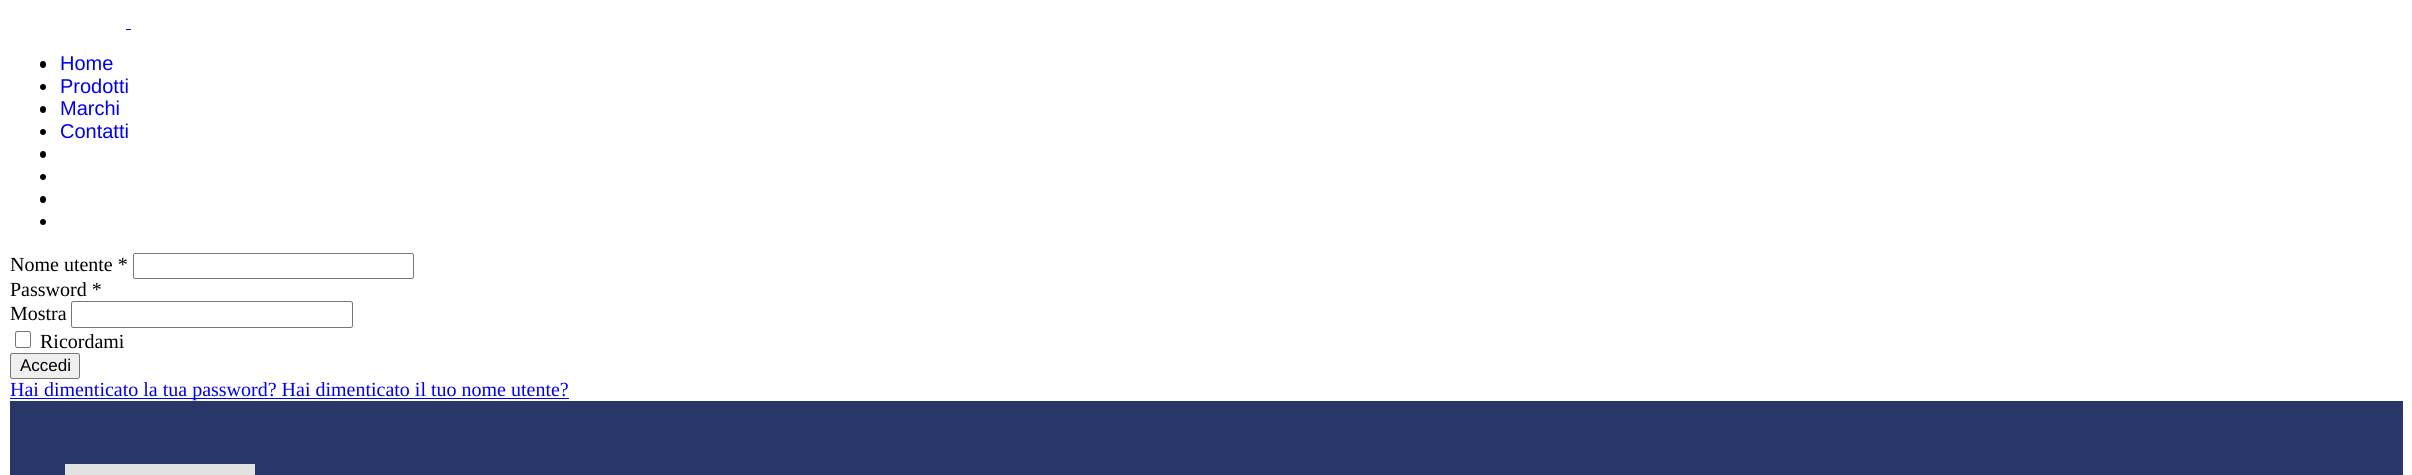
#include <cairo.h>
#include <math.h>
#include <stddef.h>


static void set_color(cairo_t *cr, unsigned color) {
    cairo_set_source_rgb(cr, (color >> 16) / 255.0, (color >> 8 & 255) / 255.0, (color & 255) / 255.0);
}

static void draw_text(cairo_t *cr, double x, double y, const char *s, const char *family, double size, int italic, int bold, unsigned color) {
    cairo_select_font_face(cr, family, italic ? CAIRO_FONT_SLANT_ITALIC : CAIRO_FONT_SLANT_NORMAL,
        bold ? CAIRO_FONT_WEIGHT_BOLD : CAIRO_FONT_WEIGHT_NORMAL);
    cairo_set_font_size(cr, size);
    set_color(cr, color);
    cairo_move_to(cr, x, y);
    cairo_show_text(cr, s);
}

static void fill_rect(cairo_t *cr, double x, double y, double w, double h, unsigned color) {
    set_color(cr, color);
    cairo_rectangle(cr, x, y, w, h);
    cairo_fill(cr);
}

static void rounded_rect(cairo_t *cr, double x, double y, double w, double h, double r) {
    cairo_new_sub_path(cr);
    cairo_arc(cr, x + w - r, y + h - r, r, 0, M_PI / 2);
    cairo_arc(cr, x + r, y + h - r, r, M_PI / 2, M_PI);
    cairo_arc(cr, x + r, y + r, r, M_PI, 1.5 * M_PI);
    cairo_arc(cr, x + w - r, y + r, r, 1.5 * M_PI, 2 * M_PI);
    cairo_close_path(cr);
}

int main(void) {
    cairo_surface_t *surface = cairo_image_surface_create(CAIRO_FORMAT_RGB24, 2412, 475);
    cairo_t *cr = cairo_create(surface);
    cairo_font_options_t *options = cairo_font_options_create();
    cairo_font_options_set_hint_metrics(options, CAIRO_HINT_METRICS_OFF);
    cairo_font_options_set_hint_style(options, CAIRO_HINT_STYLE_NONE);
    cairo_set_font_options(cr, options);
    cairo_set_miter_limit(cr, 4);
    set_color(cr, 0xFFFFFF);
    cairo_paint(cr);
    fill_rect(cr, 126, 29, 5, 1, 0x0000EE);
    set_color(cr, 0x000000);
    rounded_rect(cr, 40, 61, 6, 7, 3);
    cairo_fill(cr);
    draw_text(cr, 60, 70, "Home", "Liberation Sans", 20, 0, 0, 0x0000EE);
    set_color(cr, 0x000000);
    cairo_new_path(cr);
    cairo_arc(cr, 43, 87, 3, 0, 2 * M_PI);
    cairo_fill(cr);
    draw_text(cr, 60, 93, "Prodotti", "Liberation Sans", 20, 0, 0, 0x0000EE);
    set_color(cr, 0x000000);
    rounded_rect(cr, 40, 106, 6, 7, 3);
    cairo_fill(cr);
    draw_text(cr, 60, 115, "Marchi", "Liberation Sans", 20, 0, 0, 0x0000EE);
    set_color(cr, 0x000000);
    cairo_new_path(cr);
    cairo_arc(cr, 43, 132, 3, 0, 2 * M_PI);
    cairo_fill(cr);
    draw_text(cr, 60, 138, "Contatti", "Liberation Sans", 20, 0, 0, 0x0000EE);
    set_color(cr, 0x000000);
    rounded_rect(cr, 40, 151, 6, 7, 3);
    cairo_fill(cr);
    cairo_arc(cr, 43, 177, 3, 0, 2 * M_PI);
    cairo_fill(cr);
    rounded_rect(cr, 40, 196, 6, 7, 3);
    cairo_fill(cr);
    cairo_arc(cr, 43, 222, 3, 0, 2 * M_PI);
    cairo_fill(cr);
    draw_text(cr, 10, 271, "Nome utente *", "Liberation Serif", 20, 0, 0, 0x000000);
    rounded_rect(cr, 133.5, 253.5, 280, 25, 2);
    set_color(cr, 0x767676);
    cairo_set_line_width(cr, 1);
    cairo_stroke(cr);
    draw_text(cr, 10, 296, "Password *", "Liberation Serif", 20, 0, 0, 0x000000);
    draw_text(cr, 10, 320, "Mostra", "Liberation Serif", 20, 0, 0, 0x000000);
    rounded_rect(cr, 71.5, 301.5, 281, 26, 2);
    set_color(cr, 0x767676);
    cairo_stroke(cr);
    rounded_rect(cr, 15.5, 331.5, 15, 16, 2);
    cairo_stroke(cr);
    draw_text(cr, 40, 348, "Ricordami", "Liberation Serif", 20, 0, 0, 0x000000);
    set_color(cr, 0xEFEFEF);
    rounded_rect(cr, 10.5, 353.5, 69, 25, 2);
    cairo_fill_preserve(cr);
    set_color(cr, 0x767676);
    cairo_stroke(cr);
    draw_text(cr, 20, 371, "Accedi", "Liberation Sans", 17, 0, 0, 0x000000);
    fill_rect(cr, 10, 398, 559, 1, 0x0000EE);
    draw_text(cr, 10, 396, "Hai dimenticato la tua password? Hai dimenticato il tuo nome utente?", "Liberation Serif", 20, 0, 0, 0x0000EE);
    fill_rect(cr, 10, 401, 2393, 74, 0x293768);
    fill_rect(cr, 65, 464, 190, 11, 0xE2E2E2);
    cairo_surface_write_to_png(surface, "output.png");
    cairo_font_options_destroy(options);
    cairo_destroy(cr);
    cairo_surface_destroy(surface);
    return 0;
}
